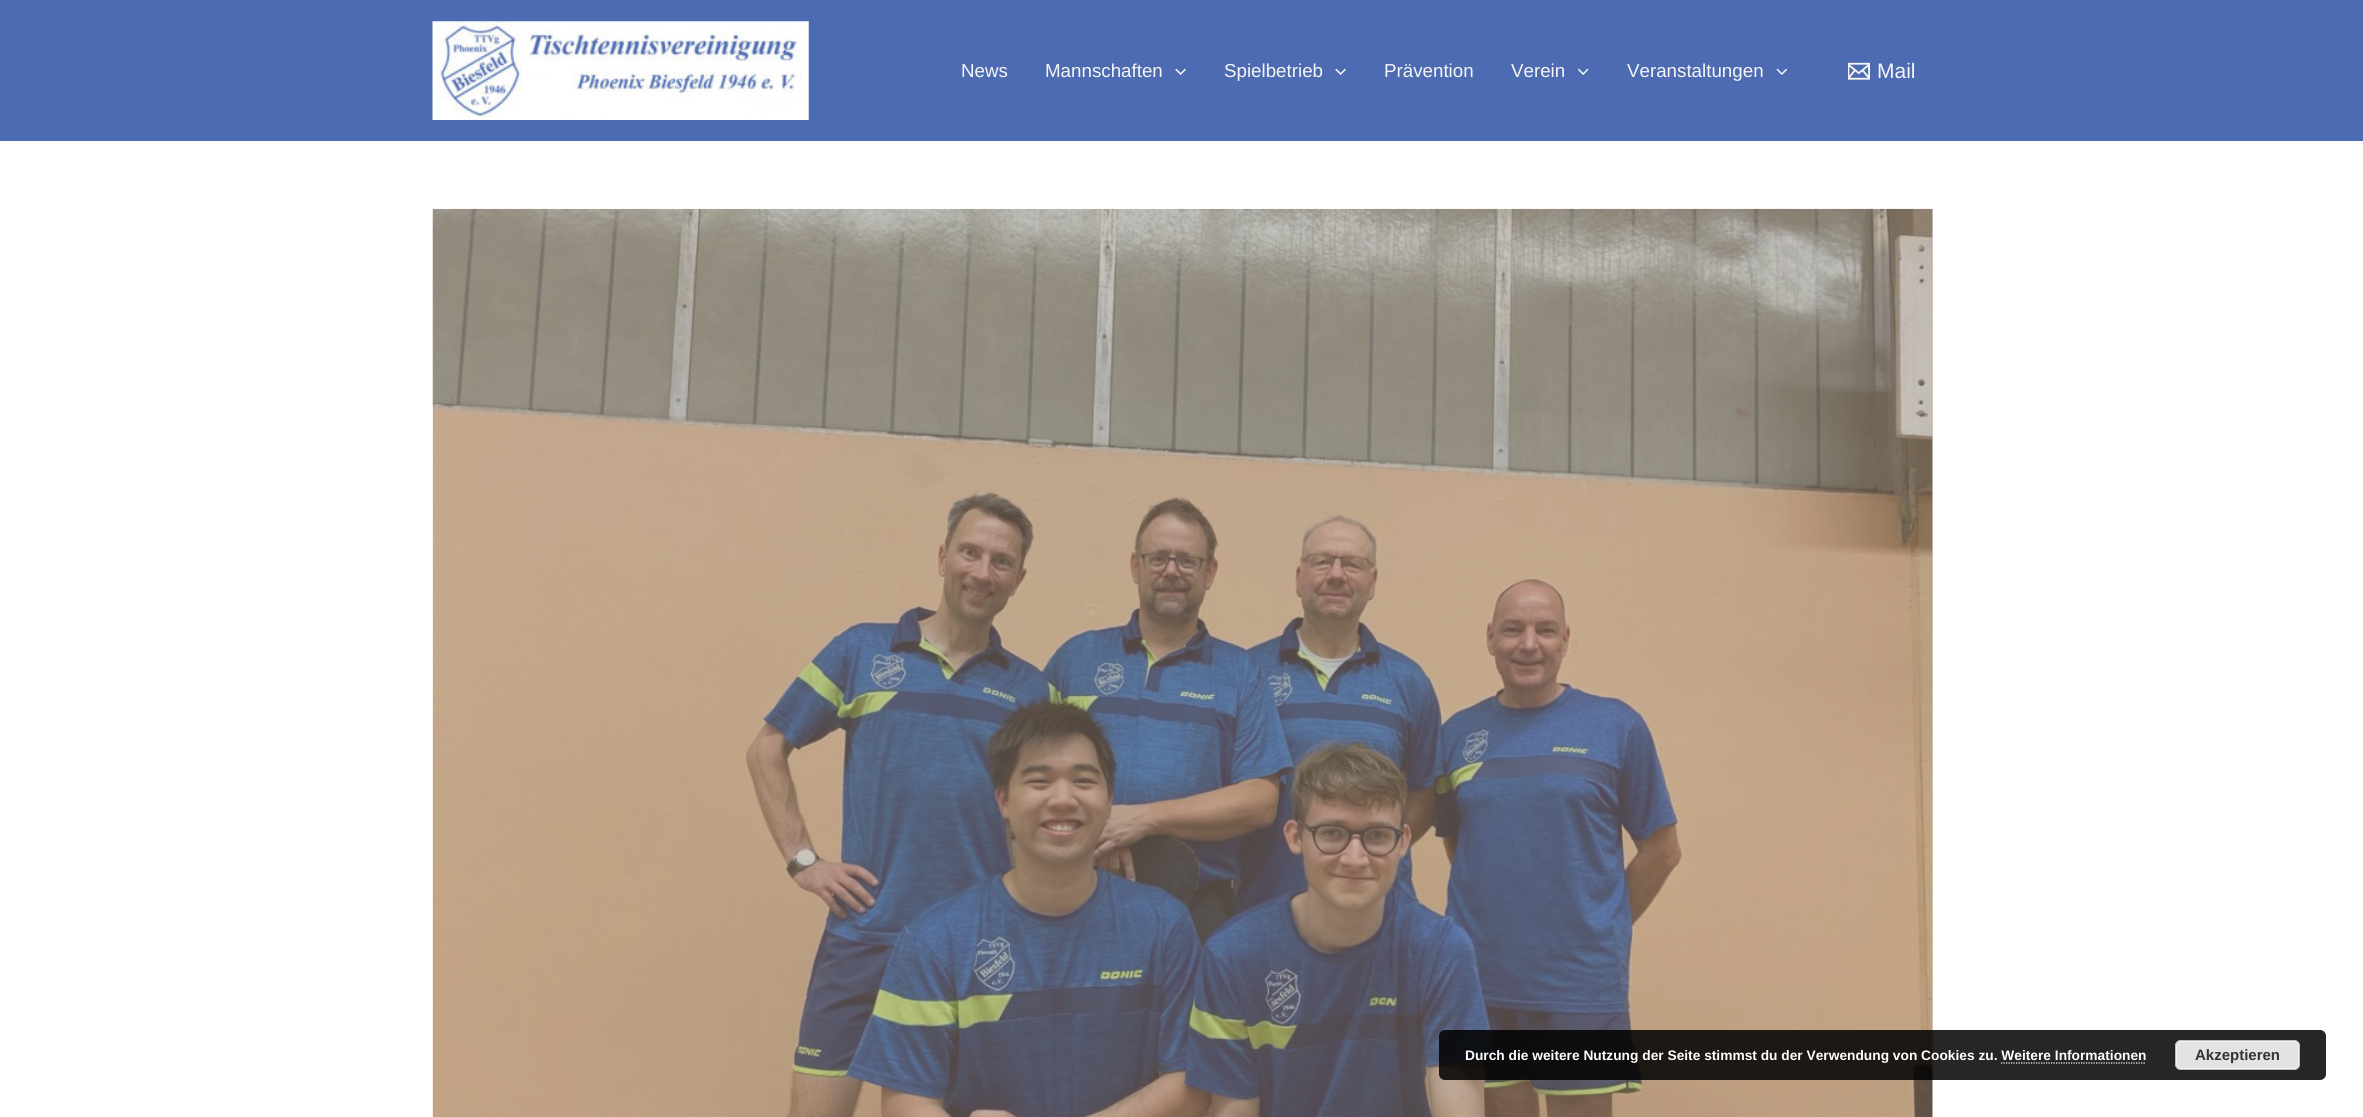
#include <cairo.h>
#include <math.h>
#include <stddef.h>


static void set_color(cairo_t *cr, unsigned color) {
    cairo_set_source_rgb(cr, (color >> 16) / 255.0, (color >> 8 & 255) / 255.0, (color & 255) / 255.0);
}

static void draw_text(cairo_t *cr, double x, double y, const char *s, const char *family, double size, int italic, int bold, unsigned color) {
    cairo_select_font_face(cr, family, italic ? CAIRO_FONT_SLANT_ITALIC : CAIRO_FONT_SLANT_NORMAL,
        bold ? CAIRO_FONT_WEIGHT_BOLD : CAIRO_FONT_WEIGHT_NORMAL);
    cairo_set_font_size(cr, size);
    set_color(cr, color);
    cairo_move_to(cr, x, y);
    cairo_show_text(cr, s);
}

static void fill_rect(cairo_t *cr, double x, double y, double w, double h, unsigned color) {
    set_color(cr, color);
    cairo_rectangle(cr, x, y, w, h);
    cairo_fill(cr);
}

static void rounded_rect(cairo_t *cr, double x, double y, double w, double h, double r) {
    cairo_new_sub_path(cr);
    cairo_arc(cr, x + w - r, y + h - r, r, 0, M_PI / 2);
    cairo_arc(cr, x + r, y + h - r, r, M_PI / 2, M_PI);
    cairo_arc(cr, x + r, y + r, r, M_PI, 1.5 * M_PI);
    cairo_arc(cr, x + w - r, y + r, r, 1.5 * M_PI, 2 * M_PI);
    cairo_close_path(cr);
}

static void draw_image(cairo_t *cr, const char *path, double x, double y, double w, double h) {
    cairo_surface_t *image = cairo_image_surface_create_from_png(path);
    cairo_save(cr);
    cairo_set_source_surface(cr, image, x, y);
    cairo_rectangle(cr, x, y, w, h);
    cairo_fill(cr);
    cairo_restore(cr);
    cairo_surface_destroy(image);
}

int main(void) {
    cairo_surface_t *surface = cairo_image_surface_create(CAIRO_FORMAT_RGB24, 2363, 1117);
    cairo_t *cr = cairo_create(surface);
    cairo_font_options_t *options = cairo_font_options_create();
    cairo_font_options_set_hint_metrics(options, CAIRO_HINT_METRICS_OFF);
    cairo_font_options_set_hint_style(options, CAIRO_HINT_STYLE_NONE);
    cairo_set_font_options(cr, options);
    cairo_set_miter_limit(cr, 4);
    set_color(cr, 0xFFFFFF);
    cairo_paint(cr);
    fill_rect(cr, 1932, 209, 1, 908, 0xD1C7BF);
    fill_rect(cr, 0, 0, 2363, 141, 0x4D6BB3);
    draw_image(cr, "assets/img1.png", 432, 21, 377, 99);
    draw_text(cr, 961, 77, "News", "Liberation Sans", 18.75, 0, 0, 0xF5F5F5);
    draw_text(cr, 1045, 77, "Mannschaften", "Liberation Sans", 18.75, 0, 0, 0xF5F5F5);
    draw_image(cr, "assets/img2.png", 1175, 68, 11, 7);
    draw_text(cr, 1224, 77, "Spielbetrieb", "Liberation Sans", 18.75, 0, 0, 0xF5F5F5);
    draw_image(cr, "assets/img2.png", 1335, 68, 11, 7);
    draw_text(cr, 1384, 77, "Prävention", "Liberation Sans", 18.75, 0, 0, 0xF5F5F5);
    draw_text(cr, 1511, 77, "Verein", "Liberation Sans", 18.75, 0, 0, 0xF5F5F5);
    draw_image(cr, "assets/img3.png", 1578, 68, 11, 7);
    draw_text(cr, 1627, 77, "Veranstaltungen", "Liberation Sans", 18.75, 0, 0, 0xF5F5F5);
    draw_image(cr, "assets/img4.png", 1776, 68, 12, 7);
    draw_image(cr, "assets/img5.png", 1848, 62, 22, 18);
    draw_text(cr, 1877, 78, "Mail", "Liberation Sans", 21, 0, 0, 0xF5F5F5);
    draw_image(cr, "assets/img6.png", 432, 208, 1501, 909);
    cairo_set_source_rgba(cr, 0, 0, 0, 0.85);
    rounded_rect(cr, 1439, 1030, 887, 50, 6);
    cairo_fill(cr);
    draw_text(cr, 1465, 1060, "Durch die weitere Nutzung der Seite stimmst du der Verwendung von Cookies zu. Weitere Informationen", "Liberation Sans", 13.75, 0, 1, 0xFFFFFF);
    set_color(cr, 0xE3E3E3);
    rounded_rect(cr, 2175, 1040, 125, 30, 6);
    cairo_fill(cr);
    rounded_rect(cr, 2176.5, 1041.5, 122, 27, 4.5);
    set_color(cr, 0xF6F6F6);
    cairo_set_line_width(cr, 1);
    cairo_stroke(cr);
    rounded_rect(cr, 2175.5, 1040.5, 124, 29, 5.5);
    set_color(cr, 0xBBBBBB);
    cairo_stroke(cr);
    draw_text(cr, 2195, 1060, "Akzeptieren", "Liberation Sans", 15, 0, 1, 0x333333);
    cairo_new_path(cr);
    cairo_move_to(cr, 2001, 1063);
    cairo_line_to(cr, 2146, 1063);
    set_color(cr, 0xFFFFFF);
    cairo_set_line_width(cr, 1.2);
    cairo_set_dash(cr, (double[]){1.25, 1.25}, 2, 0);
    cairo_stroke(cr);
    cairo_surface_write_to_png(surface, "output.png");
    cairo_font_options_destroy(options);
    cairo_destroy(cr);
    cairo_surface_destroy(surface);
    return 0;
}
